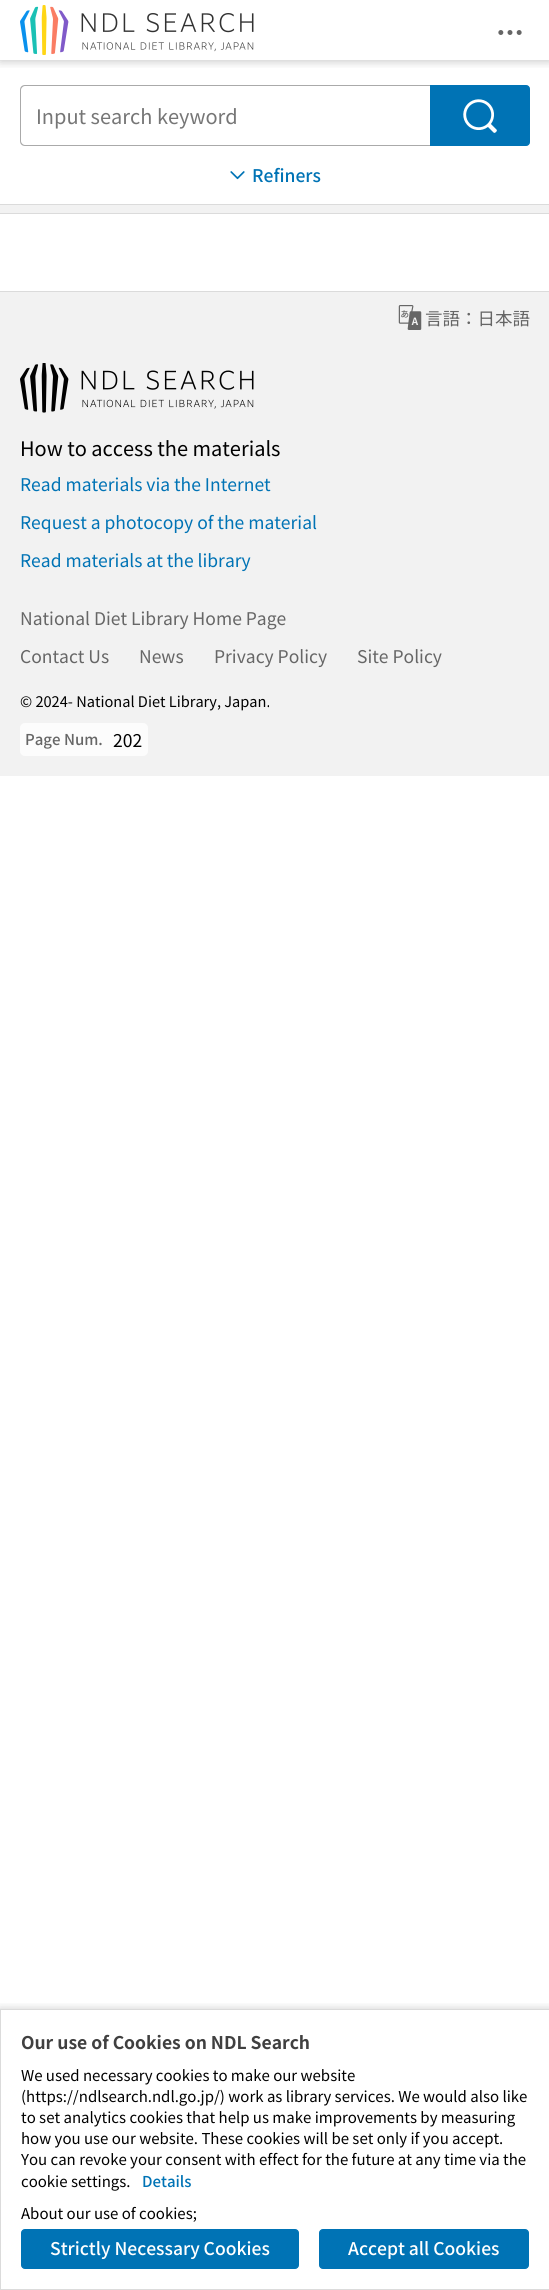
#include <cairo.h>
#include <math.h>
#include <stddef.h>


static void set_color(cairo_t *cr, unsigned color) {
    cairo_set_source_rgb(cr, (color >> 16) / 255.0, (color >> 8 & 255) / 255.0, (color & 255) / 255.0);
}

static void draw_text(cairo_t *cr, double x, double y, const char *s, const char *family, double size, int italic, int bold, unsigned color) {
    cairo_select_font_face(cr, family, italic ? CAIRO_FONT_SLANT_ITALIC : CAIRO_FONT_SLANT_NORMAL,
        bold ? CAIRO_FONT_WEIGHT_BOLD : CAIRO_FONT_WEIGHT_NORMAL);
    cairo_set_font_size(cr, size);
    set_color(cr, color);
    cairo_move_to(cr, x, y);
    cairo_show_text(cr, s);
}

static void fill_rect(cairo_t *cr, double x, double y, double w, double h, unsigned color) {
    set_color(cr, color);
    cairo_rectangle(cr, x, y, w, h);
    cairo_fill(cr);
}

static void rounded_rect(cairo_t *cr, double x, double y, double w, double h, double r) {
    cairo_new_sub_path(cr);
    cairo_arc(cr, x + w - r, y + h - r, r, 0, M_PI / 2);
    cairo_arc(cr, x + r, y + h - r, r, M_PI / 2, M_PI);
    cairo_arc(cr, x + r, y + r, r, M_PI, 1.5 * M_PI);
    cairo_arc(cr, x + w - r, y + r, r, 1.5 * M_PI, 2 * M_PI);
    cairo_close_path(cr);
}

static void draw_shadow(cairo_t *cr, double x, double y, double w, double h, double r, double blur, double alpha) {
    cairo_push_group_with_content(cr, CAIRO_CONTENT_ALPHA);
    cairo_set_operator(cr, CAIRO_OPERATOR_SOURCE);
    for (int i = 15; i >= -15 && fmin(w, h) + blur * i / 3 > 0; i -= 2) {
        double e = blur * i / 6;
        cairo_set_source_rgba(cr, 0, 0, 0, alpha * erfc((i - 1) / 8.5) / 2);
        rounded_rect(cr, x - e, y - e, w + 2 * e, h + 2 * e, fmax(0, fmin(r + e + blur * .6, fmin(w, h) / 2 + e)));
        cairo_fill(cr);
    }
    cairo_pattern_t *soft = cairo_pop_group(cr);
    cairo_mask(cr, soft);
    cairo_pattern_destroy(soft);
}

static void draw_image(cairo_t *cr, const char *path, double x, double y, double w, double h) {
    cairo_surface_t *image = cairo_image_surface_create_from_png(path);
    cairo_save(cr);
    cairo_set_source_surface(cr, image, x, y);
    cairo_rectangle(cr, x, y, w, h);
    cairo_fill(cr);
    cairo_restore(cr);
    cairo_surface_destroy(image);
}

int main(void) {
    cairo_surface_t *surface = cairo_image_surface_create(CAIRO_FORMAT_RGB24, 549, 2290);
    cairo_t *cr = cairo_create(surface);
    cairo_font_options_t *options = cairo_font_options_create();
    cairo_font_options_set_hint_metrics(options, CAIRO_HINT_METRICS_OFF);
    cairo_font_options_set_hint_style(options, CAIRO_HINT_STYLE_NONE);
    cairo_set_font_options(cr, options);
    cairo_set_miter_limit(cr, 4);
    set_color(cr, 0xFFFFFF);
    cairo_paint(cr);
    cairo_save(cr);
    cairo_rectangle(cr, 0, 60, 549, 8);
    cairo_clip(cr);
    set_color(cr, 0x000000);
    draw_shadow(cr, 0, 1, 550, 60, 0, 5, 0.24);
    cairo_restore(cr);
    draw_image(cr, "assets/img1.png", 20, 5, 234, 50);
    draw_image(cr, "assets/img2.png", 498, 30, 24, 5);
    set_color(cr, 0xAAAAAA);
    cairo_set_fill_rule(cr, CAIRO_FILL_RULE_EVEN_ODD);
    cairo_new_path(cr);
    cairo_move_to(cr, 25, 85);
    cairo_line_to(cr, 430, 85);
    cairo_line_to(cr, 430, 146);
    cairo_line_to(cr, 25, 146);
    cairo_curve_to(cr, 22, 146, 20, 144, 20, 141);
    cairo_line_to(cr, 20, 90);
    cairo_curve_to(cr, 20, 87, 22, 85, 25, 85);
    cairo_close_path(cr);
    cairo_move_to(cr, 25, 86);
    cairo_line_to(cr, 430, 86);
    cairo_line_to(cr, 430, 145);
    cairo_line_to(cr, 25, 145);
    cairo_curve_to(cr, 23, 145, 21, 143, 21, 141);
    cairo_line_to(cr, 21, 90);
    cairo_curve_to(cr, 21, 88, 23, 86, 25, 86);
    cairo_close_path(cr);
    cairo_fill(cr);
    draw_text(cr, 36, 124, "Input search keyword", "Noto Sans JP", 20, 0, 0, 0x767676);
    set_color(cr, 0x0073B5);
    cairo_new_path(cr);
    cairo_move_to(cr, 430.5, 85.5);
    cairo_line_to(cr, 526, 85.5);
    cairo_curve_to(cr, 528, 85.5, 529.5, 87, 529.5, 89);
    cairo_line_to(cr, 529.5, 142);
    cairo_curve_to(cr, 529.5, 144, 528, 145.5, 526, 145.5);
    cairo_line_to(cr, 430.5, 145.5);
    cairo_close_path(cr);
    cairo_fill_preserve(cr);
    cairo_set_line_width(cr, 1);
    cairo_stroke(cr);
    draw_image(cr, "assets/img3.png", 463, 99, 34, 34);
    draw_image(cr, "assets/img4.png", 230, 171, 15, 9);
    draw_text(cr, 252, 182, "Refiners", "Noto Sans JP Medium", 17.5, 0, 0, 0x0073B5);
    fill_rect(cr, 0, 205, 549, 8, 0xF2F2F2);
    fill_rect(cr, 0, 204, 549, 1, 0xDBDBDB);
    fill_rect(cr, 0, 213, 549, 1, 0xDBDBDB);
    fill_rect(cr, 0, 292, 549, 484, 0xF2F2F2);
    fill_rect(cr, 0, 291, 549, 1, 0xDBDBDB);
    draw_image(cr, "assets/img5.png", 398, 305, 24, 25);
    draw_text(cr, 425, 325, "言語：日本語", "Noto Sans JP", 17.5, 0, 0, 0x666666);
    draw_image(cr, "assets/img6.png", 20, 363, 234, 50);
    draw_text(cr, 20, 456, "How to access the materials", "Noto Sans JP", 20, 0, 0, 0x000000);
    draw_text(cr, 20, 491, "Read materials via the Internet", "Noto Sans JP", 17.5, 0, 0, 0x0073B5);
    draw_text(cr, 20, 529, "Request a photocopy of the material", "Noto Sans JP", 17.5, 0, 0, 0x0073B5);
    draw_text(cr, 20, 567, "Read materials at the library", "Noto Sans JP", 17.5, 0, 0, 0x0073B5);
    draw_text(cr, 20, 625, "National Diet Library Home Page", "Noto Sans JP", 17.5, 0, 0, 0x666666);
    draw_text(cr, 20, 663, "Contact Us", "Noto Sans JP", 17.5, 0, 0, 0x666666);
    draw_text(cr, 139, 663, "News", "Noto Sans JP", 17.5, 0, 0, 0x666666);
    draw_text(cr, 214, 663, "Privacy Policy", "Noto Sans JP", 17.5, 0, 0, 0x666666);
    draw_text(cr, 357, 663, "Site Policy", "Noto Sans JP", 17.5, 0, 0, 0x666666);
    draw_text(cr, 20, 707, "© 2024- National Diet Library, Japan.", "Noto Sans JP", 14.6, 0, 0, 0x000000);
    set_color(cr, 0xFCFCFC);
    rounded_rect(cr, 20, 723, 128, 33, 5);
    cairo_fill(cr);
    draw_text(cr, 25, 745, "Page Num.", "Noto Sans JP Medium", 15, 0, 0, 0x666666);
    draw_text(cr, 113, 747, "202", "Noto Sans JP", 17.5, 0, 0, 0x000000);
    cairo_save(cr);
    cairo_set_fill_rule(cr, CAIRO_FILL_RULE_WINDING);
    cairo_rectangle(cr, 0, 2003, 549, 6);
    cairo_clip(cr);
    set_color(cr, 0x000000);
    draw_shadow(cr, 0, 2010, 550, 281, 0, 5, 0.24);
    cairo_restore(cr);
    cairo_rectangle(cr, 0.5, 2009.5, 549, 280);
    set_color(cr, 0xDBDBDB);
    cairo_stroke(cr);
    draw_text(cr, 21, 2049, "Our use of Cookies on NDL Search", "Noto Sans JP", 17.5, 0, 1, 0x404040);
    draw_text(cr, 21, 2081, "We used necessary cookies to make our website", "Noto Sans JP", 15, 0, 0, 0x000000);
    draw_text(cr, 21, 2102, "(https://ndlsearch.ndl.go.jp/) work as library services. We would also like", "Noto Sans JP", 15, 0, 0, 0x000000);
    draw_text(cr, 21, 2123, "to set analytics cookies that help us make improvements by measuring", "Noto Sans JP", 15, 0, 0, 0x000000);
    draw_text(cr, 21, 2144, "how you use our website. These cookies will be set only if you accept.", "Noto Sans JP", 15, 0, 0, 0x000000);
    draw_text(cr, 21, 2165, "You can revoke your consent with effect for the future at any time via the", "Noto Sans JP", 15, 0, 0, 0x000000);
    draw_text(cr, 21, 2187, "cookie settings.", "Noto Sans JP", 15, 0, 0, 0x000000);
    draw_text(cr, 142, 2187, "Details", "Noto Sans JP Medium", 15, 0, 0, 0x0073B5);
    draw_text(cr, 21, 2219, "About our use of cookies;", "Noto Sans JP", 15, 0, 0, 0x000000);
    set_color(cr, 0x0073B5);
    rounded_rect(cr, 21.5, 2229.5, 277, 39, 3.5);
    cairo_fill_preserve(cr);
    cairo_stroke(cr);
    draw_text(cr, 50, 2255, "Strictly Necessary Cookies", "Noto Sans JP Medium", 17.5, 0, 0, 0xFFFFFF);
    set_color(cr, 0x0073B5);
    rounded_rect(cr, 319.5, 2229.5, 209, 39, 3.5);
    cairo_fill_preserve(cr);
    cairo_stroke(cr);
    draw_text(cr, 348, 2255, "Accept all Cookies", "Noto Sans JP Medium", 17.5, 0, 0, 0xFFFFFF);
    cairo_surface_write_to_png(surface, "output.png");
    cairo_font_options_destroy(options);
    cairo_destroy(cr);
    cairo_surface_destroy(surface);
    return 0;
}
